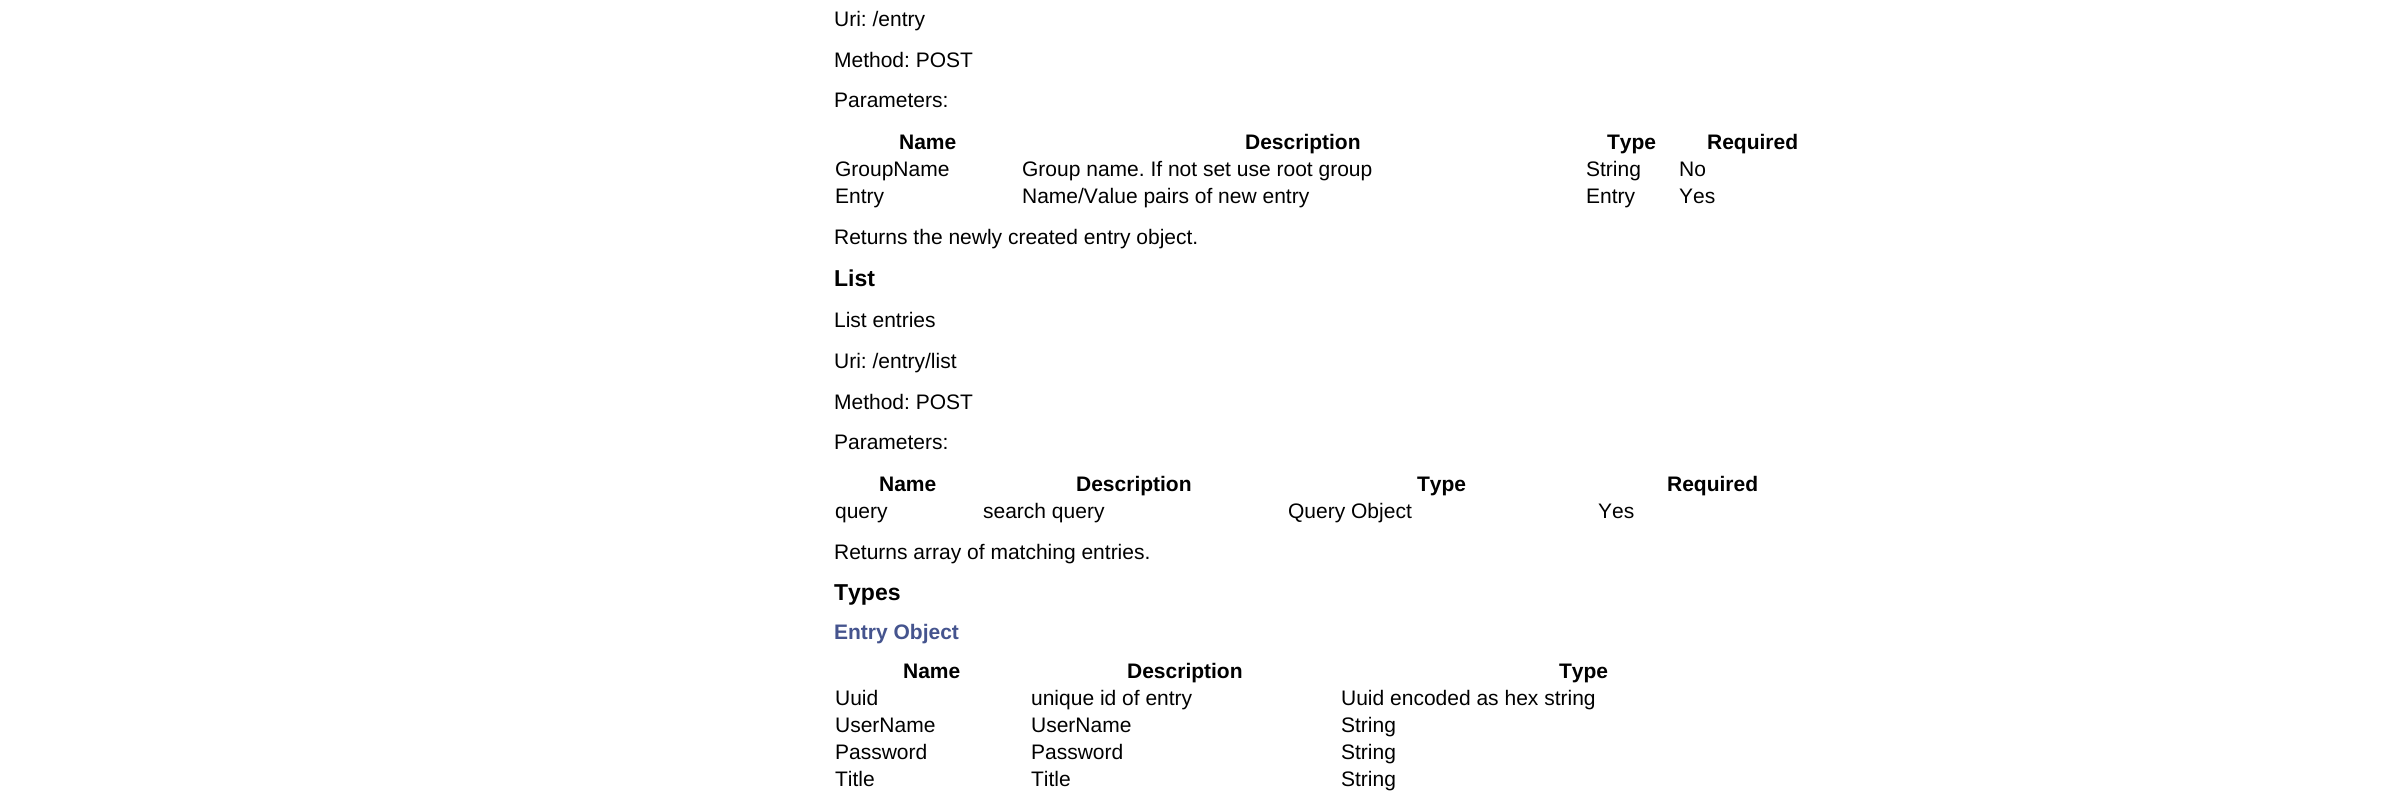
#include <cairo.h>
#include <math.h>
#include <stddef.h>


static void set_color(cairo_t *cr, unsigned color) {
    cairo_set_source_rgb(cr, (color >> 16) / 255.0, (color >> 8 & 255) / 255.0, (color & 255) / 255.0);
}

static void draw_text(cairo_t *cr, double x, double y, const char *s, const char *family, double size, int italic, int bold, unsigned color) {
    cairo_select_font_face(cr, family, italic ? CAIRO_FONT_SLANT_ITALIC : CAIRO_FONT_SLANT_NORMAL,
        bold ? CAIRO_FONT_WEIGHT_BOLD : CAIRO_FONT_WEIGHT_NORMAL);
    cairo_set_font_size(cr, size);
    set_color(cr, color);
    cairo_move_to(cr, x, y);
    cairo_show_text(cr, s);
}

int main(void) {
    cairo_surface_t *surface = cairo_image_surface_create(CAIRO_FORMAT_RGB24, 2383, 807);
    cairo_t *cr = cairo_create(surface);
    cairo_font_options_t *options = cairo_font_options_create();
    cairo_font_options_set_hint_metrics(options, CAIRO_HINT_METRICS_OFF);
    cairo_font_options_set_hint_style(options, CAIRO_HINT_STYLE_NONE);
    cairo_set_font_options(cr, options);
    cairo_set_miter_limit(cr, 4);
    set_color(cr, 0xFFFFFF);
    cairo_paint(cr);
    draw_text(cr, 834, 26, "Uri: /entry", "Liberation Sans", 21, 0, 0, 0x000000);
    draw_text(cr, 834, 67, "Method: POST", "Liberation Sans", 21, 0, 0, 0x000000);
    draw_text(cr, 834, 107, "Parameters:", "Liberation Sans", 21, 0, 0, 0x000000);
    draw_text(cr, 899, 149, "Name", "Liberation Sans", 21, 0, 1, 0x000000);
    draw_text(cr, 1245, 149, "Description", "Liberation Sans", 21, 0, 1, 0x000000);
    draw_text(cr, 1607, 149, "Type", "Liberation Sans", 21, 0, 1, 0x000000);
    draw_text(cr, 1707, 149, "Required", "Liberation Sans", 21, 0, 1, 0x000000);
    draw_text(cr, 835, 176, "GroupName", "Liberation Sans", 21, 0, 0, 0x000000);
    draw_text(cr, 1022, 176, "Group name. If not set use root group", "Liberation Sans", 21, 0, 0, 0x000000);
    draw_text(cr, 1586, 176, "String", "Liberation Sans", 21, 0, 0, 0x000000);
    draw_text(cr, 1679, 176, "No", "Liberation Sans", 21, 0, 0, 0x000000);
    draw_text(cr, 835, 203, "Entry", "Liberation Sans", 21, 0, 0, 0x000000);
    draw_text(cr, 1022, 203, "Name/Value pairs of new entry", "Liberation Sans", 21, 0, 0, 0x000000);
    draw_text(cr, 1586, 203, "Entry", "Liberation Sans", 21, 0, 0, 0x000000);
    draw_text(cr, 1679, 203, "Yes", "Liberation Sans", 21, 0, 0, 0x000000);
    draw_text(cr, 834, 244, "Returns the newly created entry object.", "Liberation Sans", 21, 0, 0, 0x000000);
    draw_text(cr, 834, 286, "List", "Liberation Sans", 23, 0, 1, 0x000000);
    draw_text(cr, 834, 327, "List entries", "Liberation Sans", 21, 0, 0, 0x000000);
    draw_text(cr, 834, 368, "Uri: /entry/list", "Liberation Sans", 21, 0, 0, 0x000000);
    draw_text(cr, 834, 409, "Method: POST", "Liberation Sans", 21, 0, 0, 0x000000);
    draw_text(cr, 834, 449, "Parameters:", "Liberation Sans", 21, 0, 0, 0x000000);
    draw_text(cr, 879, 491, "Name", "Liberation Sans", 21, 0, 1, 0x000000);
    draw_text(cr, 1076, 491, "Description", "Liberation Sans", 21, 0, 1, 0x000000);
    draw_text(cr, 1417, 491, "Type", "Liberation Sans", 21, 0, 1, 0x000000);
    draw_text(cr, 1667, 491, "Required", "Liberation Sans", 21, 0, 1, 0x000000);
    draw_text(cr, 835, 518, "query", "Liberation Sans", 21, 0, 0, 0x000000);
    draw_text(cr, 983, 518, "search query", "Liberation Sans", 21, 0, 0, 0x000000);
    draw_text(cr, 1288, 518, "Query Object", "Liberation Sans", 21, 0, 0, 0x000000);
    draw_text(cr, 1598, 518, "Yes", "Liberation Sans", 21, 0, 0, 0x000000);
    draw_text(cr, 834, 559, "Returns array of matching entries.", "Liberation Sans", 21, 0, 0, 0x000000);
    draw_text(cr, 834, 600, "Types", "Liberation Sans", 23, 0, 1, 0x000000);
    draw_text(cr, 834, 639, "Entry Object", "Liberation Sans", 21, 0, 1, 0x45548E);
    draw_text(cr, 903, 678, "Name", "Liberation Sans", 21, 0, 1, 0x000000);
    draw_text(cr, 1127, 678, "Description", "Liberation Sans", 21, 0, 1, 0x000000);
    draw_text(cr, 1559, 678, "Type", "Liberation Sans", 21, 0, 1, 0x000000);
    draw_text(cr, 835, 705, "Uuid", "Liberation Sans", 21, 0, 0, 0x000000);
    draw_text(cr, 1031, 705, "unique id of entry", "Liberation Sans", 21, 0, 0, 0x000000);
    draw_text(cr, 1341, 705, "Uuid encoded as hex string", "Liberation Sans", 21, 0, 0, 0x000000);
    draw_text(cr, 835, 732, "UserName", "Liberation Sans", 21, 0, 0, 0x000000);
    draw_text(cr, 1031, 732, "UserName", "Liberation Sans", 21, 0, 0, 0x000000);
    draw_text(cr, 1341, 732, "String", "Liberation Sans", 21, 0, 0, 0x000000);
    draw_text(cr, 835, 759, "Password", "Liberation Sans", 21, 0, 0, 0x000000);
    draw_text(cr, 1031, 759, "Password", "Liberation Sans", 21, 0, 0, 0x000000);
    draw_text(cr, 1341, 759, "String", "Liberation Sans", 21, 0, 0, 0x000000);
    draw_text(cr, 835, 786, "Title", "Liberation Sans", 21, 0, 0, 0x000000);
    draw_text(cr, 1031, 786, "Title", "Liberation Sans", 21, 0, 0, 0x000000);
    draw_text(cr, 1341, 786, "String", "Liberation Sans", 21, 0, 0, 0x000000);
    cairo_surface_write_to_png(surface, "output.png");
    cairo_font_options_destroy(options);
    cairo_destroy(cr);
    cairo_surface_destroy(surface);
    return 0;
}
